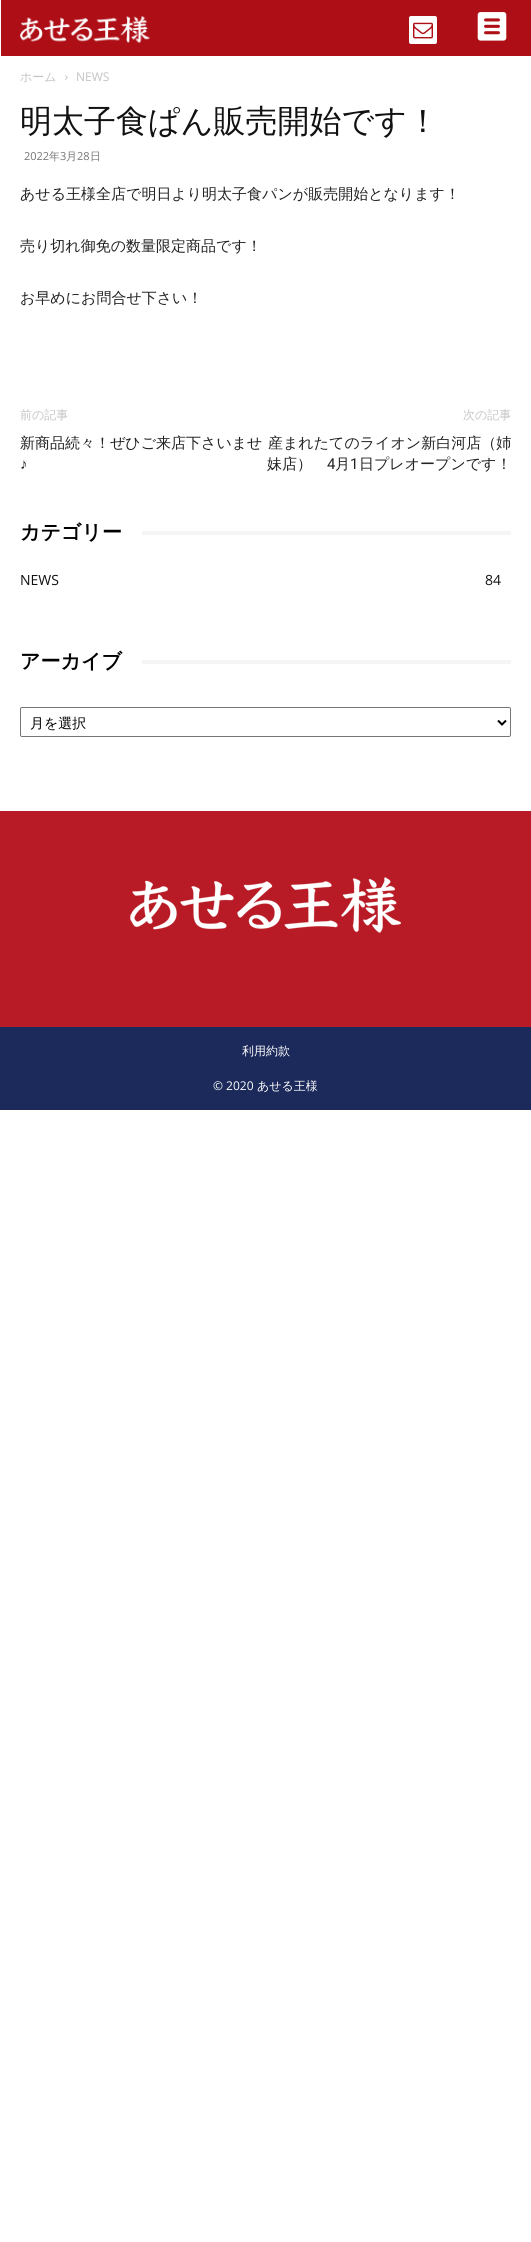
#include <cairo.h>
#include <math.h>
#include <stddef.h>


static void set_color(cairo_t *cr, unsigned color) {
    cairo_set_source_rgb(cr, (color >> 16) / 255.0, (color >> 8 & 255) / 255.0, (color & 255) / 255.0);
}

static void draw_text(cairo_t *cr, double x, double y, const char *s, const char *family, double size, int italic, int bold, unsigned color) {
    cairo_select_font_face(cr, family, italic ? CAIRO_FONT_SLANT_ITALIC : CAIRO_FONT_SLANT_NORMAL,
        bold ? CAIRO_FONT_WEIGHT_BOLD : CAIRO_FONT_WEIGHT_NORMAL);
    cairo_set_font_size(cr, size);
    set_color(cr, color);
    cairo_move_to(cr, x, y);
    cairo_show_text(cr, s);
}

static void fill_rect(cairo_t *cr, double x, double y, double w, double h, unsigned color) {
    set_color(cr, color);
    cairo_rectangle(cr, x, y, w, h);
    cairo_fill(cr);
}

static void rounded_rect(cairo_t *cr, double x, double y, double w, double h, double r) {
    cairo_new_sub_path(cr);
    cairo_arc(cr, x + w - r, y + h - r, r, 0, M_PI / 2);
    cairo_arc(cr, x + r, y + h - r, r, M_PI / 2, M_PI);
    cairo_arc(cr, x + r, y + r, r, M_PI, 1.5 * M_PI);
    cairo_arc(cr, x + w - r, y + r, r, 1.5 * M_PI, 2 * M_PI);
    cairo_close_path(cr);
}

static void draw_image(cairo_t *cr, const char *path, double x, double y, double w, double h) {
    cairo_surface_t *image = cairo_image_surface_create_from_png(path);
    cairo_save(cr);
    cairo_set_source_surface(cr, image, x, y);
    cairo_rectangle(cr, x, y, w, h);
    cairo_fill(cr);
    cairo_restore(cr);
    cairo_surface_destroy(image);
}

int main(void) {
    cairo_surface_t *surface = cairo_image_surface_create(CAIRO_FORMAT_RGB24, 531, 2242);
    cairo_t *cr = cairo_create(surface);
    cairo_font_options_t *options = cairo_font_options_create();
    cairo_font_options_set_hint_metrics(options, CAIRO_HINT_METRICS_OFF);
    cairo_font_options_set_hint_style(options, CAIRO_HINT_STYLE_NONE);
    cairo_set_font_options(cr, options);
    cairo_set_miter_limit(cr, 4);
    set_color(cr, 0xFFFFFF);
    cairo_paint(cr);
    fill_rect(cr, 1, 0, 530, 56, 0xAE0E16);
    draw_image(cr, "assets/img1.png", 20, 15, 130, 29);
    set_color(cr, 0xFFFFFF);
    rounded_rect(cr, 409, 16, 28, 28, 2);
    cairo_fill(cr);
    draw_image(cr, "assets/img2.png", 413, 22, 20, 17);
    draw_image(cr, "assets/img3.png", 477, 12, 30, 29);
    draw_text(cr, 20, 81, "ホーム", "WenQuanYi Zen Hei Medium", 12, 0, 0, 0xC3C3C3);
    draw_image(cr, "assets/img4.png", 65, 75, 3, 5);
    draw_text(cr, 76, 81, "NEWS", "Open Sans", 12, 0, 0, 0xC3C3C3);
    draw_text(cr, 20, 132, "明太子食ぱん販売開始です！", "WenQuanYi Zen Hei Medium", 32, 0, 0, 0x111111);
    draw_text(cr, 24, 160, "2022", "Open Sans", 11, 0, 0, 0x767676);
    draw_text(cr, 49, 160, "年", "WenQuanYi Zen Hei Medium", 11, 0, 0, 0x767676);
    draw_text(cr, 60, 160, "3", "Open Sans", 11, 0, 0, 0x767676);
    draw_text(cr, 66, 160, "月", "WenQuanYi Zen Hei Medium", 11, 0, 0, 0x767676);
    draw_text(cr, 77, 160, "28", "Open Sans", 11, 0, 0, 0x767676);
    draw_text(cr, 90, 160, "日", "WenQuanYi Zen Hei Medium", 11, 0, 0, 0x767676);
    draw_text(cr, 20, 199, "あせる王様全店で明日より明太子食パンが販売開始となります！", "WenQuanYi Zen Hei Medium", 15, 0, 0, 0x222222);
    draw_text(cr, 20, 251, "売り切れ御免の数量限定商品です！", "WenQuanYi Zen Hei Medium", 15, 0, 0, 0x222222);
    draw_text(cr, 20, 303, "お早めにお問合せ下さい！", "WenQuanYi Zen Hei Medium", 15, 0, 0, 0x222222);
    draw_text(cr, 20, 419, "前の記事", "WenQuanYi Zen Hei Medium", 12, 0, 0, 0xC3C3C3);
    draw_text(cr, 20, 448, "新商品続々！ぜひご来店下さいませ", "WenQuanYi Zen Hei Medium", 15, 0, 0, 0x222222);
    draw_text(cr, 20, 469, "♪", "Liberation Sans", 15, 0, 0, 0x222222);
    draw_text(cr, 463, 419, "次の記事", "WenQuanYi Zen Hei Medium", 12, 0, 0, 0xC3C3C3);
    draw_text(cr, 268, 448, "産まれたてのライオン新白河店（姉", "WenQuanYi Zen Hei Medium", 15, 0, 0, 0x222222);
    draw_text(cr, 267, 469, "妹店）", "WenQuanYi Zen Hei Medium", 15, 0, 0, 0x222222);
    draw_text(cr, 327, 469, "4", "Roboto", 15, 0, 0, 0x222222);
    draw_text(cr, 335, 469, "月", "WenQuanYi Zen Hei Medium", 15, 0, 0, 0x222222);
    draw_text(cr, 350, 469, "1", "Roboto", 15, 0, 0, 0x222222);
    draw_text(cr, 359, 469, "日プレオープンです！", "WenQuanYi Zen Hei Medium", 15, 0, 0, 0x222222);
    draw_text(cr, 20, 539, "カテゴリー", "WenQuanYi Zen Hei", 20, 0, 1, 0x000000);
    fill_rect(cr, 142, 531, 369, 4, 0xF5F5F5);
    draw_text(cr, 20, 585, "NEWS", "Open Sans", 14, 0, 0, 0x111111);
    draw_text(cr, 485, 585, "84", "Open Sans", 14, 0, 0, 0x111111);
    draw_text(cr, 20, 668, "アーカイブ", "WenQuanYi Zen Hei", 20, 0, 1, 0x000000);
    fill_rect(cr, 142, 660, 369, 4, 0xF5F5F5);
    rounded_rect(cr, 20.5, 707.5, 490, 29, 1.5);
    set_color(cr, 0x767676);
    cairo_set_line_width(cr, 1);
    cairo_stroke(cr);
    cairo_new_path(cr);
    cairo_move_to(cr, 498, 720.5);
    cairo_line_to(cr, 502, 724.5);
    cairo_line_to(cr, 506, 720.5);
    set_color(cr, 0x000000);
    cairo_set_line_width(cr, 2);
    cairo_stroke(cr);
    draw_text(cr, 30, 728, "月を選択", "WenQuanYi Zen Hei Medium", 14, 0, 0, 0x000000);
    fill_rect(cr, 0, 811, 531, 216, 0xB81B25);
    draw_image(cr, "assets/img5.png", 130, 877, 271, 56);
    fill_rect(cr, 0, 1027, 531, 83, 0x1C2A5B);
    draw_text(cr, 242, 1055, "利用約款", "WenQuanYi Zen Hei Medium", 12, 0, 0, 0xFFFFFF);
    draw_text(cr, 213, 1090, "© 2020", "Open Sans", 12, 0, 0, 0xFFFFFF);
    draw_text(cr, 257, 1090, "あせる王様", "WenQuanYi Zen Hei Medium", 12, 0, 0, 0xFFFFFF);
    cairo_surface_write_to_png(surface, "output.png");
    cairo_font_options_destroy(options);
    cairo_destroy(cr);
    cairo_surface_destroy(surface);
    return 0;
}
